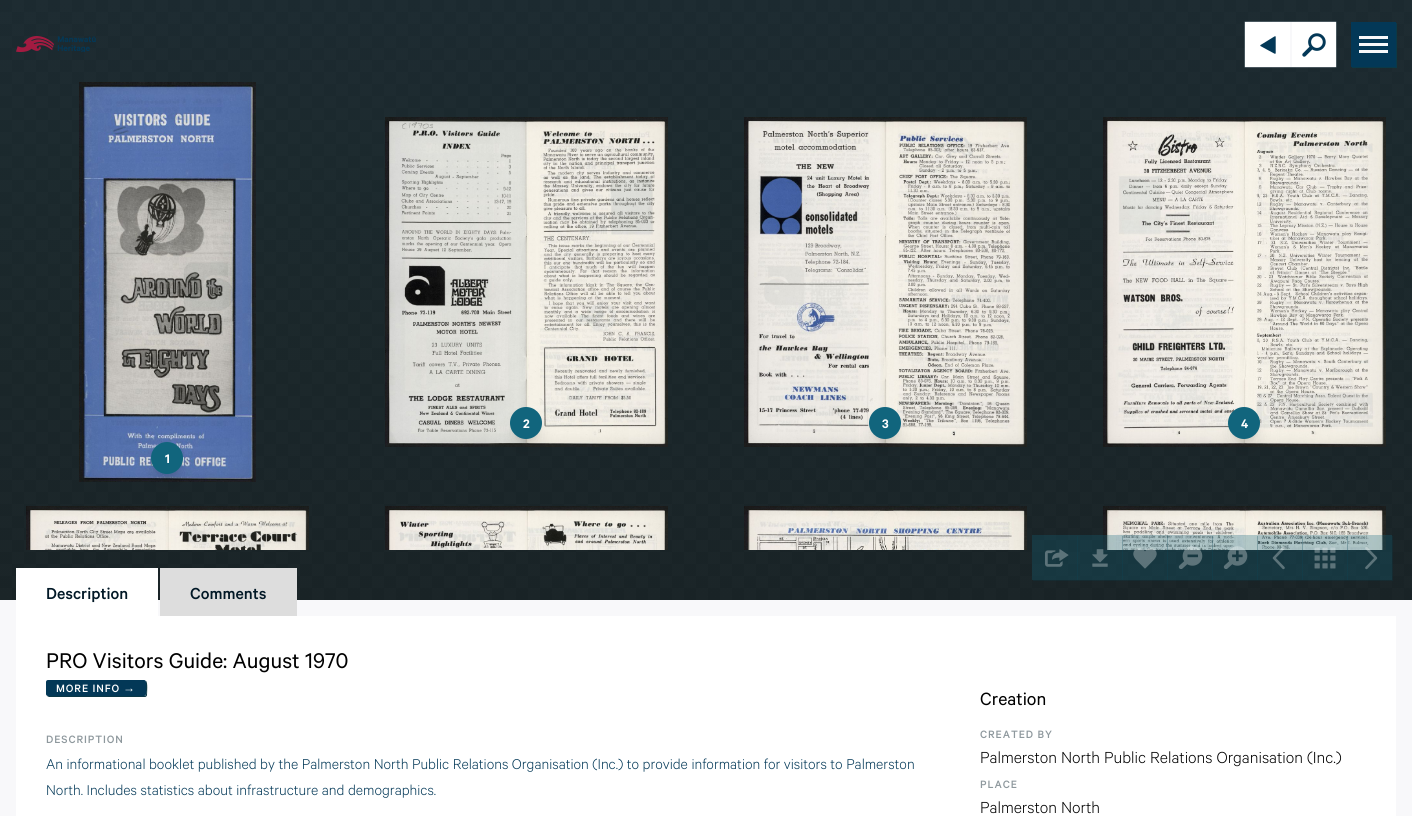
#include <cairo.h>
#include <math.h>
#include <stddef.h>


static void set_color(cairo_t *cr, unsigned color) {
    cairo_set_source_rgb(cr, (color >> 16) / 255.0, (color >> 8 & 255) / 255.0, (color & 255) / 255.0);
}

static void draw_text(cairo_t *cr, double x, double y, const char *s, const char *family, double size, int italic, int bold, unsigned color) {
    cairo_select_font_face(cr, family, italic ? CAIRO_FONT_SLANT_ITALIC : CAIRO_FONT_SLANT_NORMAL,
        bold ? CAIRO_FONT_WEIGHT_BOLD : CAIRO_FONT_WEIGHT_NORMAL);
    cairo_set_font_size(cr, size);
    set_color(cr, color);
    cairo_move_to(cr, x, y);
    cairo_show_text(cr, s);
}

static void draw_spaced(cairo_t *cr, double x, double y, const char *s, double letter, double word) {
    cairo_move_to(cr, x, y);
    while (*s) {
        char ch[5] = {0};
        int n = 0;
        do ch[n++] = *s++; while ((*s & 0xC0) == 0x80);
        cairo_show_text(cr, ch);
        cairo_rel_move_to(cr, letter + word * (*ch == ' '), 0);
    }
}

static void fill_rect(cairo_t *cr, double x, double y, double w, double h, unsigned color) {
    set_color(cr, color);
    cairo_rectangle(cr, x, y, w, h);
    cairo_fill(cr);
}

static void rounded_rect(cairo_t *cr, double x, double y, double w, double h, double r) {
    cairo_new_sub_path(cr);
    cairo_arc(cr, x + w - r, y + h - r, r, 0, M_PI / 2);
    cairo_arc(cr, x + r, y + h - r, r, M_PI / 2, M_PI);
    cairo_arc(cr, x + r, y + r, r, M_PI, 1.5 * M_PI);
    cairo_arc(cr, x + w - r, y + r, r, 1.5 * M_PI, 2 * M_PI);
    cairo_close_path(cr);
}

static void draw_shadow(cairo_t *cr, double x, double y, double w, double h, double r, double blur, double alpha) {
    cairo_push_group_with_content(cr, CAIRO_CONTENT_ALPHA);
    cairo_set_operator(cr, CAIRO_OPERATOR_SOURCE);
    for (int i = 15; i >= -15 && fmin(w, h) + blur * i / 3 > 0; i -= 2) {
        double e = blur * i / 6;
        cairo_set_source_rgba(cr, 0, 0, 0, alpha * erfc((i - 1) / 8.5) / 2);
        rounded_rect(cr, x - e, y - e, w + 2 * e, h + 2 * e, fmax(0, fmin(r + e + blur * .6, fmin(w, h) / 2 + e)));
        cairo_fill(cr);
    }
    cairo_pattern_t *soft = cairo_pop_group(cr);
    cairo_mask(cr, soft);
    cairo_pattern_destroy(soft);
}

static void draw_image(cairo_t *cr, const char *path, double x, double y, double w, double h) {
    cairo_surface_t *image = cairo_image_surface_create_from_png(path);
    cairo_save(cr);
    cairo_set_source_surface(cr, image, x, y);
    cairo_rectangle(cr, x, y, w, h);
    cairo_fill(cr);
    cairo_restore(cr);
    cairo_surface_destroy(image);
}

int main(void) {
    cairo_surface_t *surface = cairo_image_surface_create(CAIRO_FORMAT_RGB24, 1412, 816);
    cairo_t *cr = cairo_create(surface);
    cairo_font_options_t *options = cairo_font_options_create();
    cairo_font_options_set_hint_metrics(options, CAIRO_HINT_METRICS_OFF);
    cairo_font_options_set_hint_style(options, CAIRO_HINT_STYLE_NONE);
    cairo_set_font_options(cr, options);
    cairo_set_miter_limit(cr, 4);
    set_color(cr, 0xF8F8FA);
    cairo_paint(cr);
    draw_image(cr, "assets/img4.png", 0, 0, 1412, 600);
    draw_image(cr, "assets/img1.png", 16, 36, 80, 16);
    set_color(cr, 0xC9DAE5);
    draw_shadow(cr, 1245, 22, 91, 45, 0, 0.5, 1);
    fill_rect(cr, 1245, 22, 45, 45, 0xFFFFFF);
    draw_image(cr, "assets/img2.png", 1260, 36, 16, 18);
    fill_rect(cr, 1290, 22, 2, 45, 0xF8F8FA);
    fill_rect(cr, 1292, 22, 44, 45, 0xFFFFFF);
    draw_image(cr, "assets/img3.png", 1302, 33, 24, 24);
    set_color(cr, 0x0B3947);
    cairo_new_path(cr);
    cairo_move_to(cr, 1352, 67);
    cairo_line_to(cr, 1352, 68);
    cairo_line_to(cr, 1397, 68);
    cairo_line_to(cr, 1397, 23);
    cairo_line_to(cr, 1396, 23);
    cairo_line_to(cr, 1396, 67);
    cairo_close_path(cr);
    cairo_fill(cr);
    fill_rect(cr, 1351, 22, 45, 45, 0x033857);
    fill_rect(cr, 1359, 43, 29, 3, 0xF8F8FA);
    fill_rect(cr, 1359, 36, 29, 3, 0xF8F8FA);
    fill_rect(cr, 1359, 50, 29, 3, 0xF8F8FA);
    draw_image(cr, "assets/img5.png", 385, 117, 283, 330);
    set_color(cr, 0x000000);
    draw_shadow(cr, 514, 415, 24, 24, 12, 3, 0.1);
    draw_shadow(cr, 513, 420, 26, 26, 13, 7.5, 0.1);
    set_color(cr, 0x11657D);
    cairo_arc(cr, 526, 423, 16, 0, 2 * M_PI);
    cairo_fill(cr);
    draw_text(cr, 523, 428, "2", "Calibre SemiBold", 14, 0, 0, 0xFFFFFF);
    draw_image(cr, "assets/img6.png", 744, 117, 283, 330);
    set_color(cr, 0x000000);
    draw_shadow(cr, 873, 415, 24, 24, 12, 3, 0.1);
    draw_shadow(cr, 872, 420, 26, 26, 13, 7.5, 0.1);
    set_color(cr, 0x11657D);
    cairo_arc(cr, 885, 423, 16, 0, 2 * M_PI);
    cairo_fill(cr);
    draw_text(cr, 882, 428, "3", "Calibre SemiBold", 14, 0, 0, 0xFFFFFF);
    draw_image(cr, "assets/img7.png", 1103, 117, 283, 330);
    set_color(cr, 0x000000);
    draw_shadow(cr, 1232, 415, 24, 24, 12, 3, 0.1);
    draw_shadow(cr, 1231, 420, 26, 26, 13, 7.5, 0.1);
    set_color(cr, 0x11657D);
    cairo_arc(cr, 1244, 423, 16, 0, 2 * M_PI);
    cairo_fill(cr);
    draw_text(cr, 1241, 428, "4", "Calibre SemiBold", 14, 0, 0, 0xFFFFFF);
    draw_image(cr, "assets/img8.png", 79, 82, 177, 400);
    set_color(cr, 0x000000);
    draw_shadow(cr, 155, 450, 24, 24, 12, 3, 0.1);
    draw_shadow(cr, 154, 455, 26, 26, 13, 7.5, 0.1);
    set_color(cr, 0x11657D);
    cairo_arc(cr, 167, 458, 16, 0, 2 * M_PI);
    cairo_fill(cr);
    draw_text(cr, 165, 463, "1", "Calibre SemiBold", 14, 0, 0, 0xFFFFFF);
    draw_image(cr, "assets/img9.png", 26, 506, 283, 44);
    draw_image(cr, "assets/img10.png", 385, 506, 283, 44);
    draw_image(cr, "assets/img11.png", 744, 506, 283, 44);
    draw_image(cr, "assets/img12.png", 1103, 506, 283, 44);
    cairo_set_source_rgba(cr, 0.043, 0.224, 0.278, 0.3);
    cairo_new_path(cr);
    cairo_move_to(cr, 1033, 580);
    cairo_line_to(cr, 1033, 581);
    cairo_line_to(cr, 1078, 581);
    cairo_line_to(cr, 1078, 536);
    cairo_line_to(cr, 1077, 536);
    cairo_line_to(cr, 1077, 580);
    cairo_close_path(cr);
    cairo_fill(cr);
    cairo_set_source_rgba(cr, 0.067, 0.396, 0.49, 0.3);
    cairo_rectangle(cr, 1032, 535, 45, 45);
    cairo_fill(cr);
    draw_image(cr, "assets/img13.png", 1045, 549, 24, 18);
    cairo_set_source_rgba(cr, 0.043, 0.224, 0.278, 0.3);
    cairo_new_path(cr);
    cairo_move_to(cr, 1078, 580);
    cairo_line_to(cr, 1078, 581);
    cairo_line_to(cr, 1123, 581);
    cairo_line_to(cr, 1123, 536);
    cairo_line_to(cr, 1122, 536);
    cairo_line_to(cr, 1122, 580);
    cairo_close_path(cr);
    cairo_fill(cr);
    cairo_set_source_rgba(cr, 0.067, 0.396, 0.49, 0.3);
    cairo_rectangle(cr, 1077, 535, 45, 45);
    cairo_fill(cr);
    draw_image(cr, "assets/img14.png", 1092, 549, 16, 18);
    cairo_set_source_rgba(cr, 0.043, 0.224, 0.278, 0.3);
    cairo_new_path(cr);
    cairo_move_to(cr, 1123, 580);
    cairo_line_to(cr, 1123, 581);
    cairo_line_to(cr, 1168, 581);
    cairo_line_to(cr, 1168, 536);
    cairo_line_to(cr, 1167, 536);
    cairo_line_to(cr, 1167, 580);
    cairo_close_path(cr);
    cairo_fill(cr);
    cairo_set_source_rgba(cr, 0.067, 0.396, 0.49, 0.3);
    cairo_rectangle(cr, 1122, 535, 45, 45);
    cairo_fill(cr);
    draw_image(cr, "assets/img15.png", 1133, 548, 24, 21);
    cairo_set_source_rgba(cr, 0.043, 0.224, 0.278, 0.3);
    cairo_new_path(cr);
    cairo_move_to(cr, 1168, 580);
    cairo_line_to(cr, 1168, 581);
    cairo_line_to(cr, 1213, 581);
    cairo_line_to(cr, 1213, 536);
    cairo_line_to(cr, 1212, 536);
    cairo_line_to(cr, 1212, 580);
    cairo_close_path(cr);
    cairo_fill(cr);
    cairo_set_source_rgba(cr, 0.067, 0.396, 0.49, 0.3);
    cairo_rectangle(cr, 1167, 535, 45, 45);
    cairo_fill(cr);
    draw_image(cr, "assets/img16.png", 1178, 546, 25, 23);
    cairo_set_source_rgba(cr, 0.043, 0.224, 0.278, 0.3);
    cairo_new_path(cr);
    cairo_move_to(cr, 1213, 580);
    cairo_line_to(cr, 1213, 581);
    cairo_line_to(cr, 1258, 581);
    cairo_line_to(cr, 1258, 536);
    cairo_line_to(cr, 1257, 536);
    cairo_line_to(cr, 1257, 580);
    cairo_close_path(cr);
    cairo_fill(cr);
    cairo_set_source_rgba(cr, 0.067, 0.396, 0.49, 0.3);
    cairo_rectangle(cr, 1212, 535, 45, 45);
    cairo_fill(cr);
    draw_image(cr, "assets/img17.png", 1223, 546, 25, 23);
    cairo_set_source_rgba(cr, 0.043, 0.224, 0.278, 0.3);
    cairo_new_path(cr);
    cairo_move_to(cr, 1258, 580);
    cairo_line_to(cr, 1258, 581);
    cairo_line_to(cr, 1303, 581);
    cairo_line_to(cr, 1303, 536);
    cairo_line_to(cr, 1302, 536);
    cairo_line_to(cr, 1302, 580);
    cairo_close_path(cr);
    cairo_fill(cr);
    cairo_set_source_rgba(cr, 0.067, 0.396, 0.49, 0.3);
    cairo_rectangle(cr, 1257, 535, 45, 45);
    cairo_fill(cr);
    draw_image(cr, "assets/img18.png", 1272, 547, 13, 23);
    cairo_set_source_rgba(cr, 0.043, 0.224, 0.278, 0.3);
    cairo_new_path(cr);
    cairo_move_to(cr, 1303, 580);
    cairo_line_to(cr, 1303, 581);
    cairo_line_to(cr, 1348, 581);
    cairo_line_to(cr, 1348, 536);
    cairo_line_to(cr, 1347, 536);
    cairo_line_to(cr, 1347, 580);
    cairo_close_path(cr);
    cairo_fill(cr);
    cairo_set_source_rgba(cr, 0.067, 0.396, 0.49, 0.3);
    cairo_rectangle(cr, 1302, 535, 45, 45);
    cairo_fill(cr);
    draw_image(cr, "assets/img19.png", 1314, 547, 22, 22);
    cairo_set_source_rgba(cr, 0.043, 0.224, 0.278, 0.3);
    cairo_new_path(cr);
    cairo_move_to(cr, 1348, 580);
    cairo_line_to(cr, 1348, 581);
    cairo_line_to(cr, 1393, 581);
    cairo_line_to(cr, 1393, 536);
    cairo_line_to(cr, 1392, 536);
    cairo_line_to(cr, 1392, 580);
    cairo_close_path(cr);
    cairo_fill(cr);
    cairo_set_source_rgba(cr, 0.067, 0.396, 0.49, 0.3);
    cairo_rectangle(cr, 1347, 535, 45, 45);
    cairo_fill(cr);
    draw_image(cr, "assets/img20.png", 1365, 547, 13, 23);
    fill_rect(cr, 16, 568, 142, 48, 0xFFFFFF);
    draw_text(cr, 46, 599, "Description", "Calibre Medium", 18, 0, 0, 0x011826);
    fill_rect(cr, 160, 568, 137, 48, 0xDDDDDD);
    draw_text(cr, 190, 599, "Comments", "Calibre Medium", 18, 0, 0, 0x011826);
    fill_rect(cr, 16, 616, 1380, 200, 0xFFFFFF);
    draw_text(cr, 46, 668, "PRO Visitors Guide: August 1970", "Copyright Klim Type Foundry", 24, 0, 0, 0x000000);
    set_color(cr, 0x0B3947);
    cairo_new_path(cr);
    cairo_move_to(cr, 47, 696);
    cairo_line_to(cr, 49, 697);
    cairo_line_to(cr, 145, 697);
    cairo_curve_to(cr, 146, 697, 147, 696, 147, 695);
    cairo_curve_to(cr, 147, 693, 148, 682, 146, 681);
    cairo_line_to(cr, 146, 690);
    cairo_curve_to(cr, 146, 692, 147, 696, 144, 696);
    cairo_close_path(cr);
    cairo_fill(cr);
    set_color(cr, 0x033857);
    rounded_rect(cr, 46, 680, 100, 16, 2);
    cairo_fill(cr);
    cairo_select_font_face(cr, "Calibre Medium", CAIRO_FONT_SLANT_NORMAL, CAIRO_FONT_WEIGHT_NORMAL);
    cairo_set_font_size(cr, 12);
    set_color(cr, 0xFFFFFF);
    draw_spaced(cr, 56, 692, "MORE INFO", 0.9, 0);
    cairo_select_font_face(cr, "Liberation Sans", CAIRO_FONT_SLANT_NORMAL, CAIRO_FONT_WEIGHT_NORMAL);
    draw_spaced(cr, 123, 692, "→", 0.9, 0);
    cairo_select_font_face(cr, "Calibre Medium", CAIRO_FONT_SLANT_NORMAL, CAIRO_FONT_WEIGHT_NORMAL);
    set_color(cr, 0x8E989D);
    draw_spaced(cr, 46, 743, "DESCRIPTION", 0.9, 0);
    draw_text(cr, 46, 769, "An informational booklet published by the Palmerston North Public Relations Organisation (Inc.) to provide information for visitors to Palmerston", "Calibre Light", 16, 0, 0, 0x033857);
    draw_text(cr, 46, 795, "North. Includes statistics about infrastructure and demographics.", "Calibre Light", 16, 0, 0, 0x033857);
    draw_text(cr, 980, 705, "Creation", "Copyright Klim Type Foundry", 20, 0, 0, 0x000000);
    cairo_select_font_face(cr, "Calibre Medium", CAIRO_FONT_SLANT_NORMAL, CAIRO_FONT_WEIGHT_NORMAL);
    cairo_set_font_size(cr, 12);
    set_color(cr, 0x8E989D);
    draw_spaced(cr, 980, 738, "CREATED BY", 0.9, 0);
    draw_text(cr, 980, 763, "Palmerston North Public Relations Organisation (Inc.)", "Calibre Light", 18, 0, 0, 0x000000);
    cairo_select_font_face(cr, "Calibre Medium", CAIRO_FONT_SLANT_NORMAL, CAIRO_FONT_WEIGHT_NORMAL);
    cairo_set_font_size(cr, 12);
    set_color(cr, 0x8E989D);
    draw_spaced(cr, 980, 788, "PLACE", 0.9, 0);
    draw_text(cr, 980, 813, "Palmerston North", "Calibre Light", 18, 0, 0, 0x000000);
    cairo_surface_write_to_png(surface, "output.png");
    cairo_font_options_destroy(options);
    cairo_destroy(cr);
    cairo_surface_destroy(surface);
    return 0;
}
